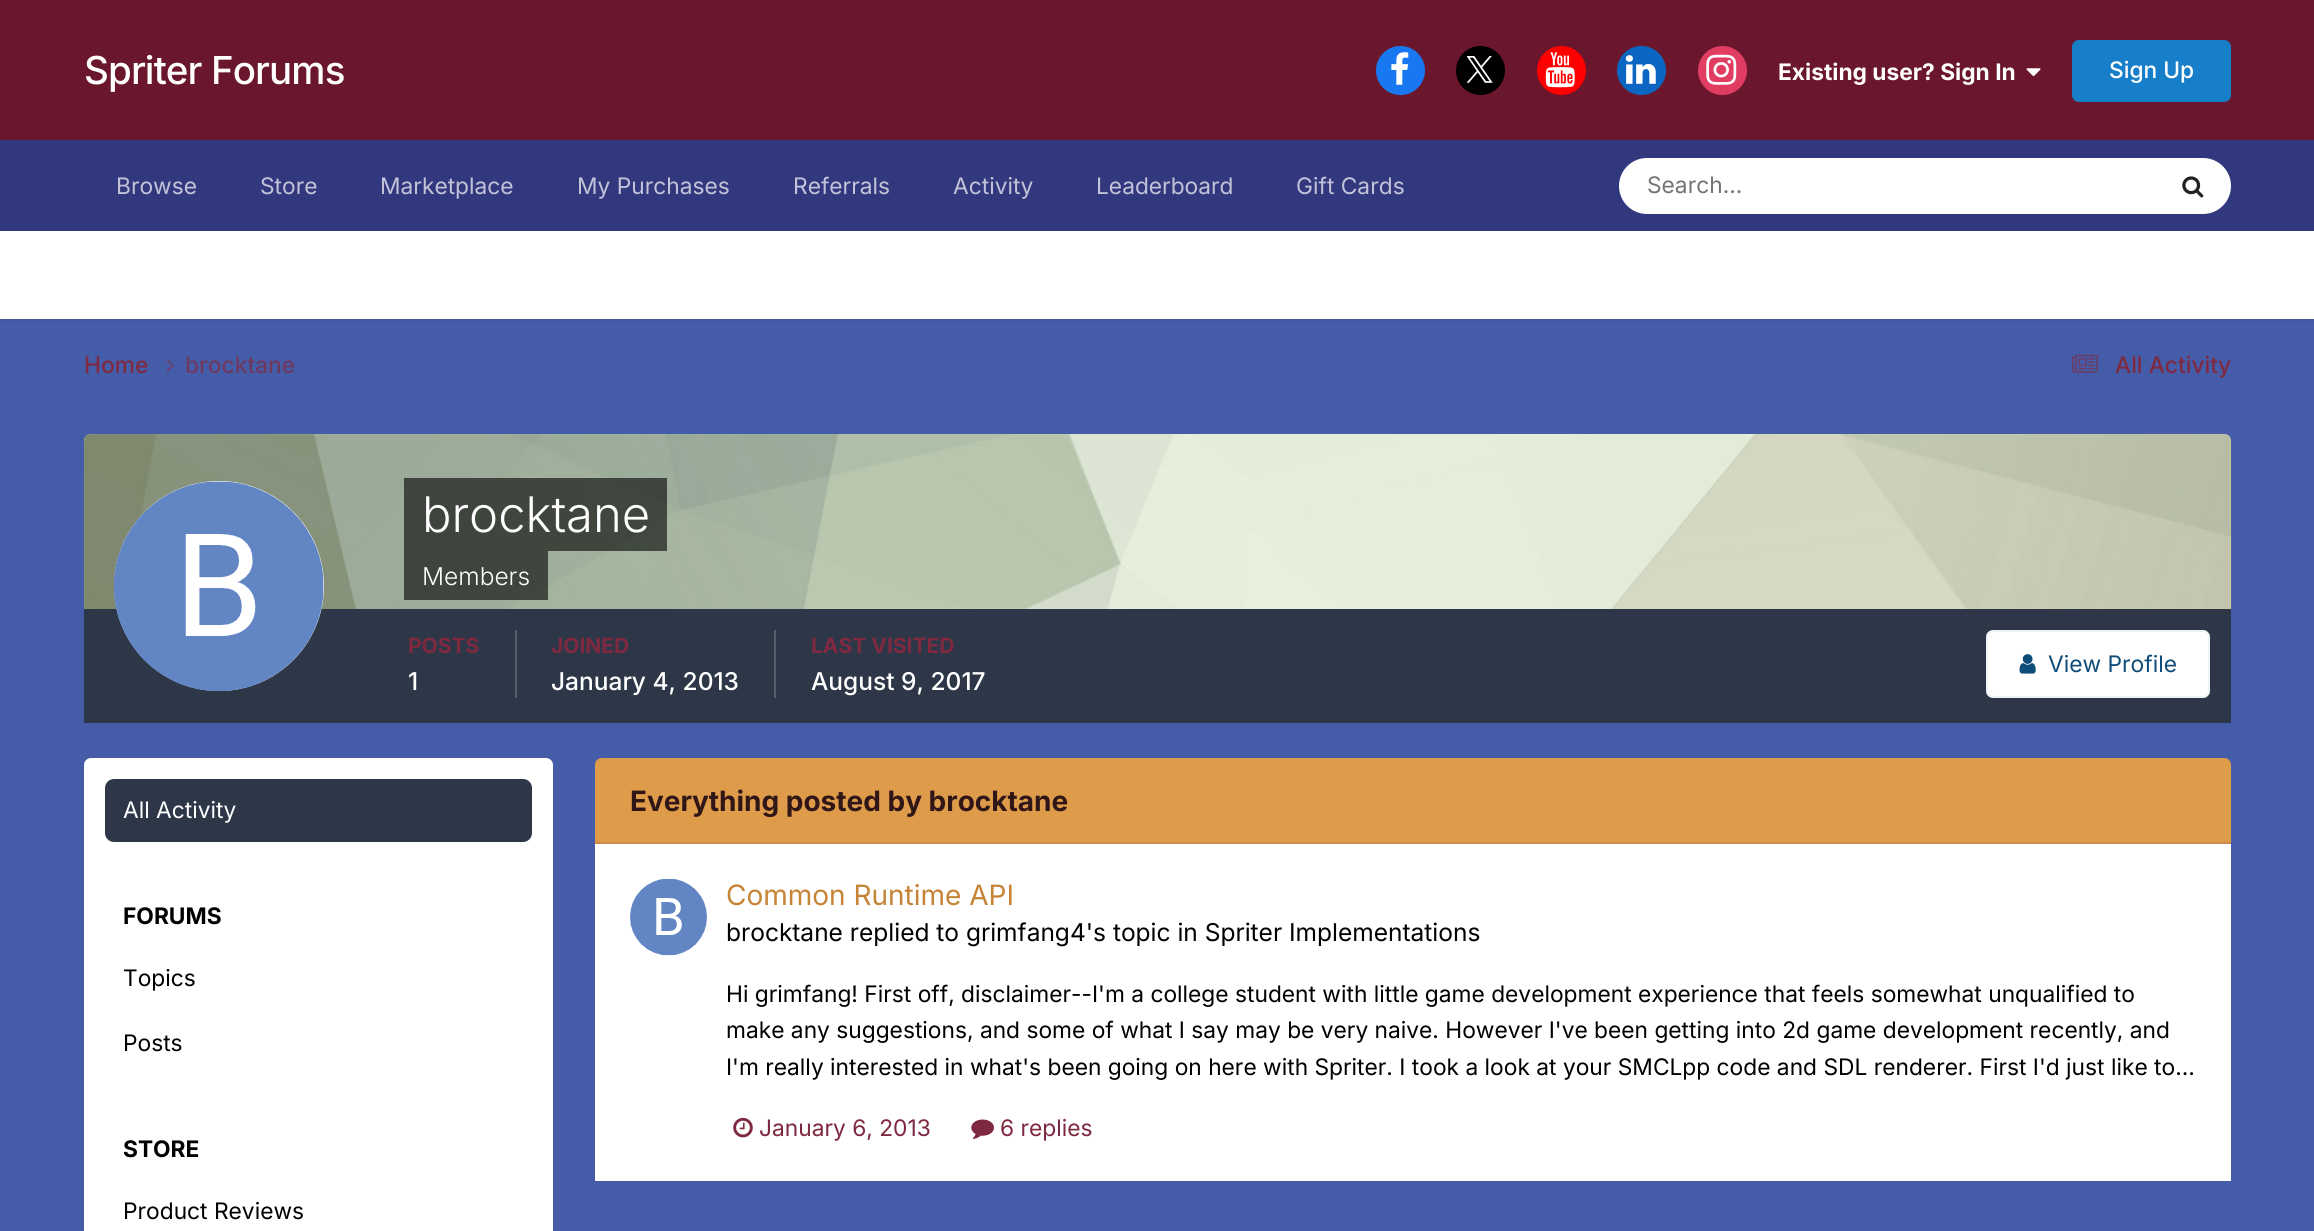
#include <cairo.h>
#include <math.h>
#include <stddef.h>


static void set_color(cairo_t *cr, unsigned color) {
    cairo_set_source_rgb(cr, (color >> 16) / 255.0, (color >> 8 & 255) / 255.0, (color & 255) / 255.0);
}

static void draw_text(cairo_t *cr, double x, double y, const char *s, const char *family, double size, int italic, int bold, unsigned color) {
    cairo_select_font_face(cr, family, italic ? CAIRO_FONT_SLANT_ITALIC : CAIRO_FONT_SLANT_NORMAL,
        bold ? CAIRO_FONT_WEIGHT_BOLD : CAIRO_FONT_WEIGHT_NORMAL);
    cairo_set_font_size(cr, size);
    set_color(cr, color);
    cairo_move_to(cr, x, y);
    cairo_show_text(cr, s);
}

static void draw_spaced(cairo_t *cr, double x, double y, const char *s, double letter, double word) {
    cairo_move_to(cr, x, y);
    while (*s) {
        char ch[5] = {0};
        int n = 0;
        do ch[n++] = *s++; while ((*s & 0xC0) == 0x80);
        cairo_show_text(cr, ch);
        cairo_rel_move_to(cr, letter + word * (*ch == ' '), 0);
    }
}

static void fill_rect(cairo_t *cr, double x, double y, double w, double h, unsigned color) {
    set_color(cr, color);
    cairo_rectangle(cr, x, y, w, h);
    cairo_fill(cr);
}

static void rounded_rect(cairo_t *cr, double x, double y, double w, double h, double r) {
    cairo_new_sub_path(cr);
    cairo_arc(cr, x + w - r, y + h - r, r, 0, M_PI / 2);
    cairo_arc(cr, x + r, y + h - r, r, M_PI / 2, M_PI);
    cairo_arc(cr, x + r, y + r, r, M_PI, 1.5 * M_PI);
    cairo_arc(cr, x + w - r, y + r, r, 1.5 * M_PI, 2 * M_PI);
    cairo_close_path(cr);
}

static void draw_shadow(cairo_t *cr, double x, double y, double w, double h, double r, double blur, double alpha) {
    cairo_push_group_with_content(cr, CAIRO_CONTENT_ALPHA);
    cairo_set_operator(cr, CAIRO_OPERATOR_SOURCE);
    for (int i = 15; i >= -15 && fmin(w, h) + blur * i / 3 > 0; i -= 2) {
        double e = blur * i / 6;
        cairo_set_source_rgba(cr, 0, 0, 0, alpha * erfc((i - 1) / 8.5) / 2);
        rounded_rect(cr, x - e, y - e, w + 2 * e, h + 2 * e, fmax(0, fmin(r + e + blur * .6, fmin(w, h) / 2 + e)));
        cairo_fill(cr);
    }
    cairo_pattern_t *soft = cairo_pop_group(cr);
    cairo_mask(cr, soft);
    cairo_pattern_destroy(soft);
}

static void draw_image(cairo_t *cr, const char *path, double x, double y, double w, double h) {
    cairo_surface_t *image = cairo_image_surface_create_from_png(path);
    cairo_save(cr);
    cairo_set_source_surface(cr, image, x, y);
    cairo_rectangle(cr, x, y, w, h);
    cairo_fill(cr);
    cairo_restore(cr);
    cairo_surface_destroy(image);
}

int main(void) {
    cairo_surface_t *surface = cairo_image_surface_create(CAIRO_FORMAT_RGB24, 2314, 1231);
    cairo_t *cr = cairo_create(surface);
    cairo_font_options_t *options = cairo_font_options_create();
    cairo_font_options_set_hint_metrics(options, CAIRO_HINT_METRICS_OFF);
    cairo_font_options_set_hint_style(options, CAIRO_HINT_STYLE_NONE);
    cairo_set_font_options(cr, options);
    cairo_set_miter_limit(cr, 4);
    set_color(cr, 0x455DA8);
    cairo_paint(cr);
    fill_rect(cr, 0, 0, 2314, 140, 0x6A172D);
    cairo_select_font_face(cr, "Inter Medium", CAIRO_FONT_SLANT_NORMAL, CAIRO_FONT_WEIGHT_NORMAL);
    cairo_set_font_size(cr, 38.5);
    set_color(cr, 0xFFFFFF);
    draw_spaced(cr, 84, 84, "Spriter Forums", -0.9, 0);
    set_color(cr, 0x1778F2);
    cairo_new_path(cr);
    cairo_arc(cr, 1400.5, 70.5, 24.5, 0, 2 * M_PI);
    cairo_fill(cr);
    draw_image(cr, "assets/img1.png", 1391, 52, 18, 33);
    set_color(cr, 0x000000);
    cairo_arc(cr, 1480.5, 70.5, 24.5, 0, 2 * M_PI);
    cairo_fill(cr);
    draw_image(cr, "assets/img2.png", 1467, 56, 26, 27);
    set_color(cr, 0xFF0000);
    cairo_arc(cr, 1561.5, 70.5, 24.5, 0, 2 * M_PI);
    cairo_fill(cr);
    draw_image(cr, "assets/img3.png", 1545, 52, 30, 36);
    set_color(cr, 0x0A66C2);
    cairo_arc(cr, 1641.5, 70.5, 24.5, 0, 2 * M_PI);
    cairo_fill(cr);
    draw_image(cr, "assets/img4.png", 1625, 55, 31, 29);
    set_color(cr, 0xE13D62);
    cairo_arc(cr, 1722.5, 70.5, 24.5, 0, 2 * M_PI);
    cairo_fill(cr);
    draw_image(cr, "assets/img5.png", 1706, 54, 31, 31);
    draw_text(cr, 1778, 80, "Existing user? Sign In", "Inter", 22.75, 0, 1, 0xFFFFFF);
    draw_image(cr, "assets/img6.png", 2026, 68, 15, 9);
    set_color(cr, 0x177EC9);
    rounded_rect(cr, 2072, 40, 159, 62, 7);
    cairo_fill(cr);
    draw_text(cr, 2109, 78, "Sign Up", "Inter Medium", 22.75, 0, 0, 0xFFFFFF);
    fill_rect(cr, 0, 140, 2314, 91, 0x32387E);
    draw_text(cr, 116, 194, "Browse", "Inter", 22.75, 0, 0, 0xC2C3D8);
    draw_text(cr, 260, 194, "Store", "Inter", 22.75, 0, 0, 0xC2C3D8);
    draw_text(cr, 380, 194, "Marketplace", "Inter", 22.75, 0, 0, 0xC2C3D8);
    draw_text(cr, 577, 194, "My Purchases", "Inter", 22.75, 0, 0, 0xC2C3D8);
    draw_text(cr, 793, 194, "Referrals", "Inter", 22.75, 0, 0, 0xC2C3D8);
    draw_text(cr, 953, 194, "Activity", "Inter", 22.75, 0, 0, 0xC2C3D8);
    draw_text(cr, 1096, 194, "Leaderboard", "Inter", 22.75, 0, 0, 0xC2C3D8);
    draw_text(cr, 1296, 194, "Gift Cards", "Inter", 22.75, 0, 0, 0xC2C3D8);
    set_color(cr, 0xFFFFFF);
    rounded_rect(cr, 1619, 158, 612, 56, 28);
    cairo_fill(cr);
    draw_text(cr, 1647, 193, "Search...", "Inter", 22.75, 0, 0, 0x757575);
    draw_image(cr, "assets/img7.png", 2182, 176, 22, 22);
    set_color(cr, 0x000000);
    draw_shadow(cr, 0, 233, 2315, 87, 0, 2, 0.1);
    fill_rect(cr, 0, 231, 2314, 88, 0xFFFFFF);
    draw_text(cr, 84, 373, "Home", "Inter Medium", 22.75, 0, 0, 0x7F2941);
    draw_image(cr, "assets/img8.png", 166, 359, 8, 13);
    draw_text(cr, 185, 373, "brocktane", "Inter Medium", 22.75, 0, 0, 0x6E3960);
    draw_image(cr, "assets/img9.png", 2072, 354, 26, 19);
    draw_text(cr, 2115, 373, "All Activity", "Inter Medium", 22.75, 0, 0, 0x7F2941);
    set_color(cr, 0xD8FF99);
    cairo_new_path(cr);
    cairo_move_to(cr, 91, 434);
    cairo_line_to(cr, 2224, 434);
    cairo_curve_to(cr, 2228, 434, 2231, 437, 2231, 441);
    cairo_line_to(cr, 2231, 609);
    cairo_line_to(cr, 84, 609);
    cairo_line_to(cr, 84, 441);
    cairo_curve_to(cr, 84, 437, 87, 434, 91, 434);
    cairo_close_path(cr);
    cairo_fill(cr);
    draw_image(cr, "assets/img10.png", 84, 434, 2148, 175);
    fill_rect(cr, 84, 609, 2147, 114, 0x2D3748);
    set_color(cr, 0xFFFFFF);
    cairo_arc(cr, 219, 586, 105, 0, 2 * M_PI);
    cairo_fill(cr);
    draw_image(cr, "assets/img11.png", 114, 481, 210, 210);
    cairo_set_source_rgba(cr, 0, 0, 0, 0.6);
    cairo_rectangle(cr, 404, 478, 263, 73);
    cairo_fill(cr);
    draw_text(cr, 422, 532, "brocktane", "Inter Light", 49, 0, 0, 0xFFFFFF);
    cairo_set_source_rgba(cr, 0, 0, 0, 0.6);
    cairo_rectangle(cr, 404, 551, 144, 49);
    cairo_fill(cr);
    draw_text(cr, 422, 585, "Members", "Inter Light", 24.5, 0, 0, 0xFFFFFF);
    fill_rect(cr, 515, 630, 2, 68, 0x575F6D);
    draw_text(cr, 408, 653, "POSTS", "Inter", 21, 0, 1, 0x7F2941);
    draw_text(cr, 408, 690, "1", "Inter Medium", 24.5, 0, 0, 0xFFFFFF);
    fill_rect(cr, 774, 630, 2, 68, 0x575F6D);
    draw_text(cr, 551, 653, "JOINED", "Inter", 21, 0, 1, 0x7F2941);
    draw_text(cr, 551, 690, "January 4, 2013", "Inter Medium", 24.5, 0, 0, 0xFFFFFF);
    draw_text(cr, 811, 653, "LAST VISITED", "Inter", 21, 0, 1, 0x7F2941);
    draw_text(cr, 811, 690, "August 9, 2017", "Inter Medium", 24.5, 0, 0, 0xFFFFFF);
    rounded_rect(cr, 1986, 630, 224, 68, 7);
    cairo_fill(cr);
    rounded_rect(cr, 1987, 631, 222, 66, 6);
    cairo_set_source_rgba(cr, 0.055, 0.298, 0.475, 0.07);
    cairo_stroke(cr);
    draw_image(cr, "assets/img12.png", 2019, 654, 17, 20);
    draw_text(cr, 2048, 672, "View Profile", "Inter", 22.75, 0, 0, 0x0E4C79);
    set_color(cr, 0xFFFFFF);
    rounded_rect(cr, 84, 758, 469, 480, 7);
    cairo_fill(cr);
    set_color(cr, 0x2D3748);
    rounded_rect(cr, 105, 779, 427, 63, 9);
    cairo_fill(cr);
    draw_text(cr, 123, 818, "All Activity", "Inter", 22.75, 0, 0, 0xFFFFFF);
    draw_text(cr, 123, 924, "FORUMS", "Inter", 22.75, 0, 1, 0x000000);
    draw_text(cr, 123, 986, "Topics", "Inter", 22.75, 0, 0, 0x000000);
    draw_text(cr, 123, 1051, "Posts", "Inter", 22.75, 0, 0, 0x000000);
    draw_text(cr, 123, 1157, "STORE", "Inter", 22.75, 0, 1, 0x000000);
    draw_text(cr, 123, 1219, "Product Reviews", "Inter", 22.75, 0, 0, 0x000000);
    set_color(cr, 0xDE9B4A);
    cairo_new_path(cr);
    cairo_move_to(cr, 602, 758);
    cairo_line_to(cr, 2224, 758);
    cairo_curve_to(cr, 2228, 758, 2231, 761, 2231, 765);
    cairo_line_to(cr, 2231, 844);
    cairo_line_to(cr, 595, 844);
    cairo_line_to(cr, 595, 765);
    cairo_curve_to(cr, 595, 761, 598, 758, 602, 758);
    cairo_close_path(cr);
    cairo_fill(cr);
    fill_rect(cr, 595, 842, 1636, 2, 0xD08A49);
    draw_text(cr, 630, 811, "Everything posted by brocktane", "Inter", 28, 0, 1, 0x301616);
    fill_rect(cr, 595, 844, 1636, 337, 0xFFFFFF);
    draw_image(cr, "assets/img13.png", 630, 879, 77, 77);
    draw_text(cr, 726, 905, "Common Runtime API", "Inter", 28, 0, 0, 0xC68436);
    draw_text(cr, 726, 941, "brocktane replied to grimfang4's topic in Spriter Implementations", "Inter", 24.5, 0, 0, 0x000000);
    draw_text(cr, 726, 1002, "Hi grimfang! First off, disclaimer--I'm a college student with little game development experience that feels somewhat unqualified to", "Inter", 22.75, 0, 0, 0x000000);
    draw_text(cr, 726, 1038, "make any suggestions, and some of what I say may be very naive. However I've been getting into 2d game development recently, and", "Inter", 22.75, 0, 0, 0x000000);
    draw_text(cr, 726, 1075, "I'm really interested in what's been going on here with Spriter. I took a look at your SMCLpp code and SDL renderer. First I'd just like to...", "Inter", 22.75, 0, 0, 0x000000);
    draw_image(cr, "assets/img14.png", 733, 1117, 20, 21);
    draw_text(cr, 759, 1136, "January 6, 2013", "Inter", 22.75, 0, 0, 0x7F2941);
    draw_image(cr, "assets/img15.png", 971, 1119, 23, 20);
    draw_text(cr, 1000, 1136, "6 replies", "Inter", 22.75, 0, 0, 0x7F2941);
    cairo_surface_write_to_png(surface, "output.png");
    cairo_font_options_destroy(options);
    cairo_destroy(cr);
    cairo_surface_destroy(surface);
    return 0;
}
